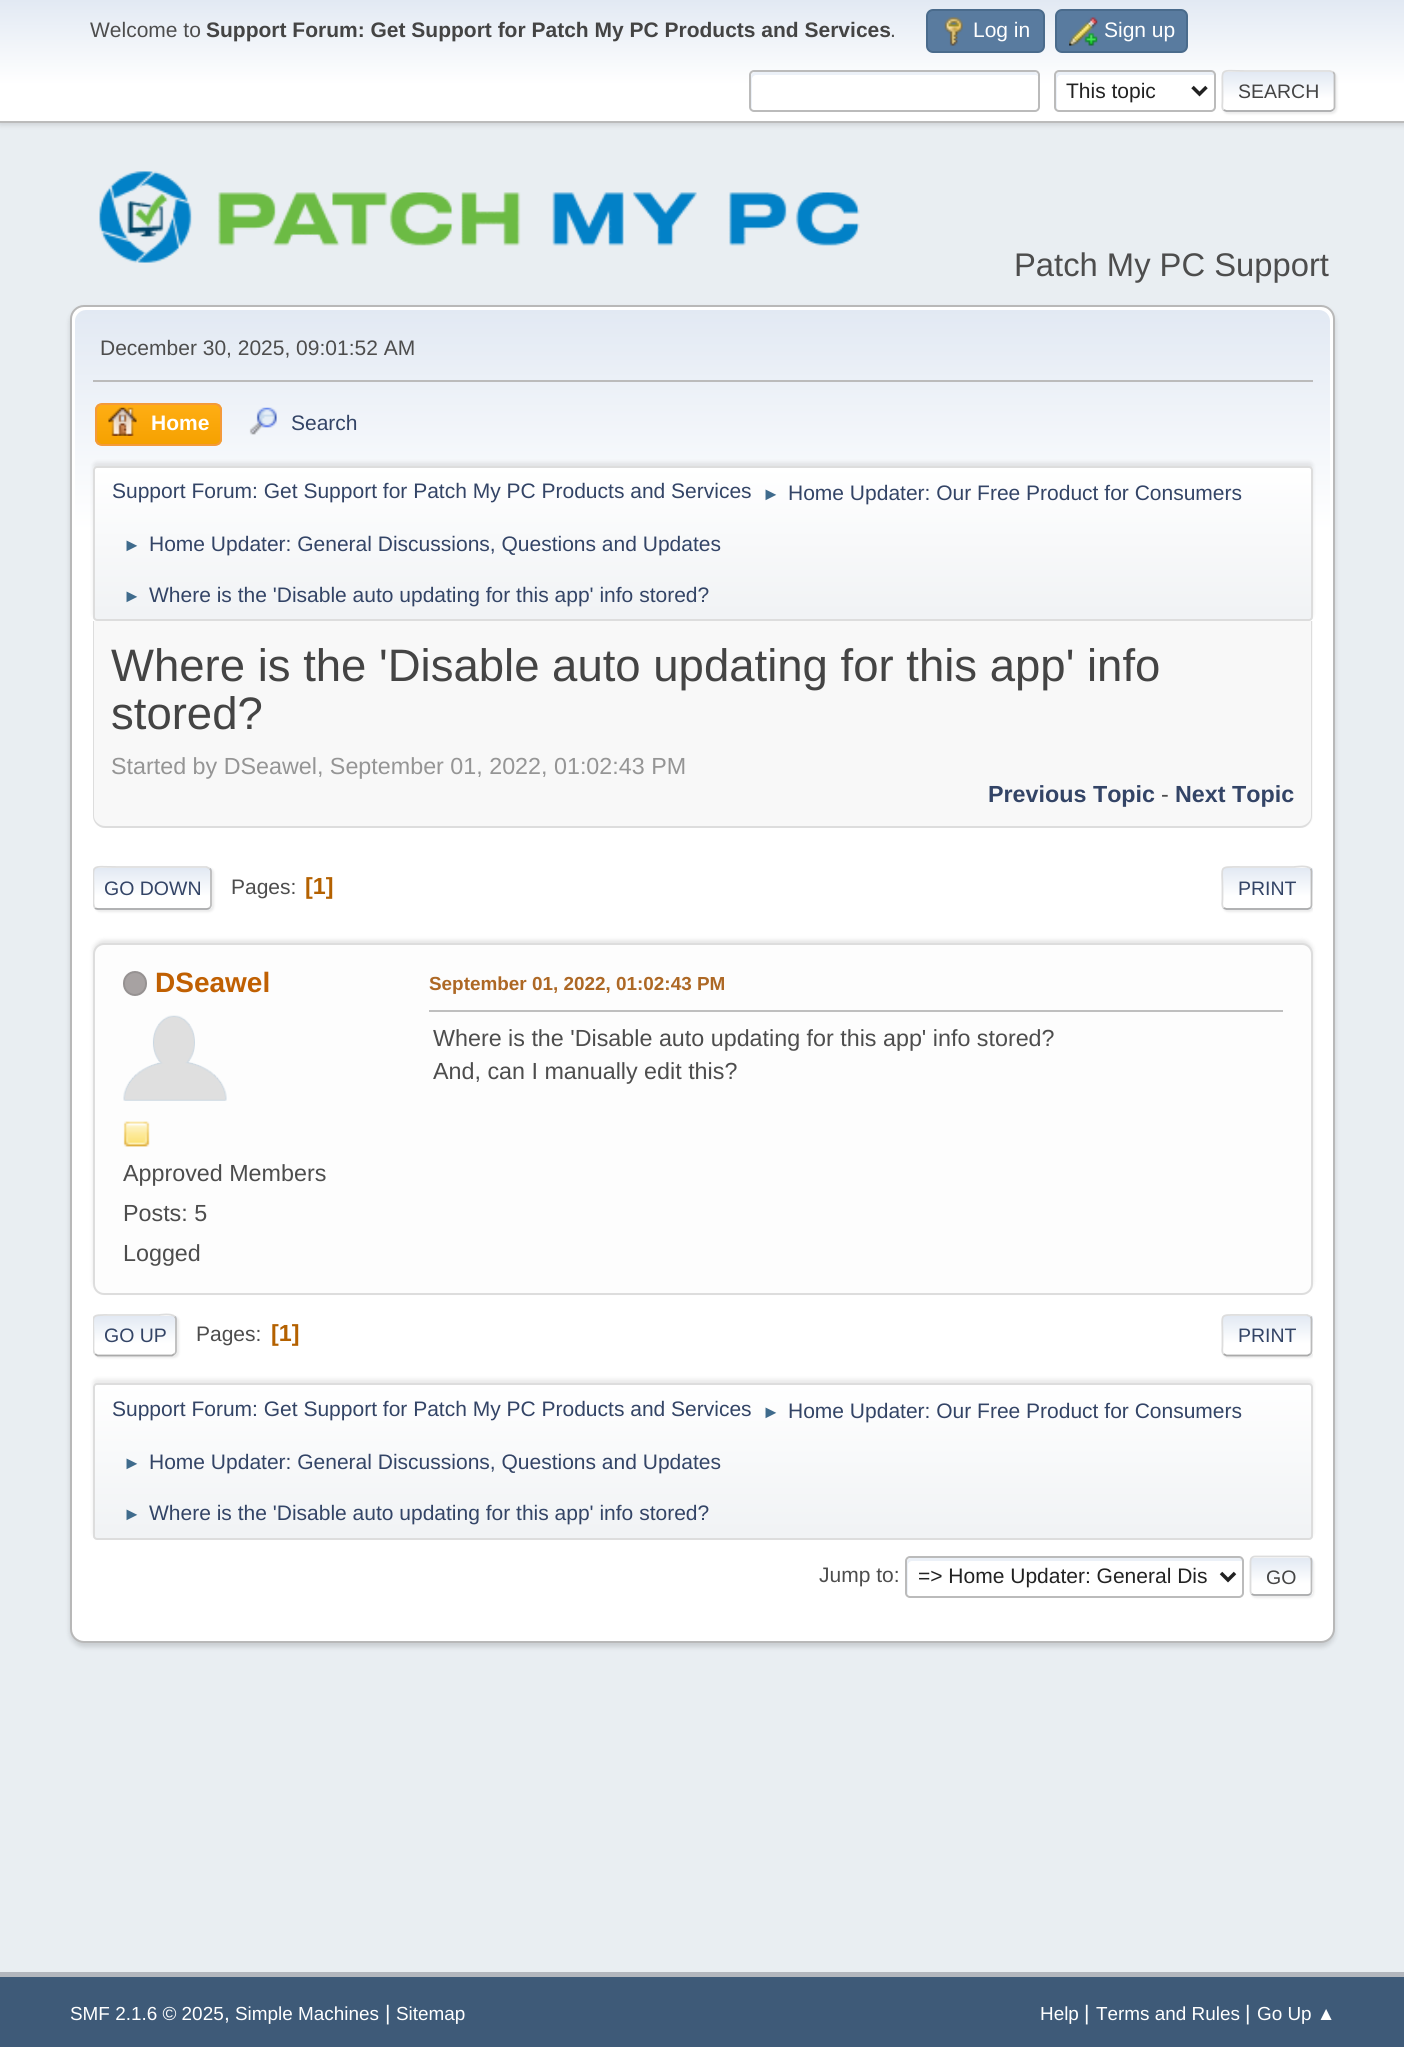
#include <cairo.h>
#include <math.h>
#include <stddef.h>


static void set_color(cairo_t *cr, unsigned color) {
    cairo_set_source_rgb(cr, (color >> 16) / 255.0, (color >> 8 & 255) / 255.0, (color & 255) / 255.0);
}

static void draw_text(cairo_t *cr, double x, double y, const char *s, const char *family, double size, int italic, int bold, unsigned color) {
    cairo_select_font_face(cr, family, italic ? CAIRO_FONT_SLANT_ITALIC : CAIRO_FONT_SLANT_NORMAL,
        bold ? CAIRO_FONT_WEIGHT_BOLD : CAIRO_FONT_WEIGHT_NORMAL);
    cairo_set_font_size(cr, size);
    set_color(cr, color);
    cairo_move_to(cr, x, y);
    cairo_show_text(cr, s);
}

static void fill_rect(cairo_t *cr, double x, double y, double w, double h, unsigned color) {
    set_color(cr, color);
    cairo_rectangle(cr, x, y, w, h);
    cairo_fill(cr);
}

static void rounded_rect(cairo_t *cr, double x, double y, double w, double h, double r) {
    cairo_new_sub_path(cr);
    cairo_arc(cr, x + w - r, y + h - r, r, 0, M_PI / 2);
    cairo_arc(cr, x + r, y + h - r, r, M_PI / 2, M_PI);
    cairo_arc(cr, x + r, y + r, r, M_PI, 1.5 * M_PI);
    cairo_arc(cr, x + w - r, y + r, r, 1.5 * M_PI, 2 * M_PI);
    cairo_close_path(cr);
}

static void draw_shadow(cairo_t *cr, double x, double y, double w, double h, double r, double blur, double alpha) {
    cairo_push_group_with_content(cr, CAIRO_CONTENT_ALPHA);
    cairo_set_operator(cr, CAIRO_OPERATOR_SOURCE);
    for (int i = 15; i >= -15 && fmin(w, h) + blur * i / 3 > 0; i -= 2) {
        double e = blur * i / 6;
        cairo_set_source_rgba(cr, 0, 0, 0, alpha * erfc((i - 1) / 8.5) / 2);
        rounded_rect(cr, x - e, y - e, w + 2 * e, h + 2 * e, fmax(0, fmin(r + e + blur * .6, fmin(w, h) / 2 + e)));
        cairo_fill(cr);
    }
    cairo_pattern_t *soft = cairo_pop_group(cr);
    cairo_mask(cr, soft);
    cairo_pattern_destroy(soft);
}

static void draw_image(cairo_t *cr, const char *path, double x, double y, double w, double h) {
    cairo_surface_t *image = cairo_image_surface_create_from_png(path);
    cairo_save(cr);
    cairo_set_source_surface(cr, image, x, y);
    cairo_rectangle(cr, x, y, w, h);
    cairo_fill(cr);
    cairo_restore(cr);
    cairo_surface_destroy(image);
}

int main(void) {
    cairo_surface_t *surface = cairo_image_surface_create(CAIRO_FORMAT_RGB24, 1404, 2047);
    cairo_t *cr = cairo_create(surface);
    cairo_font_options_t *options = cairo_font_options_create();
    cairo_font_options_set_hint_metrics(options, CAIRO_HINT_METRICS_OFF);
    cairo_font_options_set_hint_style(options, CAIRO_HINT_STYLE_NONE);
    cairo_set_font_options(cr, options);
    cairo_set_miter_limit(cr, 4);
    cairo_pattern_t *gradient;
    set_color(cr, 0xE9EEF2);
    cairo_paint(cr);
    set_color(cr, 0x000000);
    draw_shadow(cr, 0, 2, 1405, 122, 0, 3.5, 0.16);
    gradient = cairo_pattern_create_linear(703, 0, 703, 121);
    cairo_pattern_add_color_stop_rgba(gradient, 0, 0.886, 0.914, 0.953, 1);
    cairo_pattern_add_color_stop_rgba(gradient, 0.7, 1, 1, 1, 1);
    cairo_set_source(cr, gradient);
    cairo_pattern_destroy(gradient);
    cairo_rectangle(cr, 0, 0, 1404, 121);
    cairo_fill(cr);
    fill_rect(cr, 0, 121, 1404, 2, 0xBBBBBB);
    draw_text(cr, 90, 37, "Welcome to", "Liberation Sans", 21, 0, 0, 0x4D4D4D);
    draw_text(cr, 206, 37, "Support Forum: Get Support for Patch My PC Products and Services", "Liberation Sans", 21, 0, 1, 0x444444);
    draw_text(cr, 890, 37, ".", "Liberation Sans", 21, 0, 0, 0x4D4D4D);
    set_color(cr, 0x597B9F);
    rounded_rect(cr, 927, 10, 117, 42, 6);
    cairo_fill_preserve(cr);
    set_color(cr, 0x4A6B8C);
    cairo_stroke(cr);
    draw_image(cr, "assets/img1.png", 944, 17, 19, 29);
    draw_text(cr, 973, 37, "Log in", "Liberation Sans", 21, 0, 0, 0xFFFFFF);
    set_color(cr, 0x597B9F);
    rounded_rect(cr, 1056, 10, 131, 42, 6);
    cairo_fill_preserve(cr);
    set_color(cr, 0x4A6B8C);
    cairo_stroke(cr);
    draw_image(cr, "assets/img2.png", 1069, 17, 29, 29);
    draw_text(cr, 1104, 37, "Sign up", "Liberation Sans", 21, 0, 0, 0xFFFFFF);
    rounded_rect(cr, 749, 70, 291, 42, 5);
    cairo_fill(cr);
    set_color(cr, 0xECF1F8);
    cairo_new_path(cr);
    cairo_move_to(cr, 756, 75);
    cairo_line_to(cr, 1036, 75);
    cairo_line_to(cr, 1038, 76);
    cairo_curve_to(cr, 1038, 74, 1036, 72, 1034, 72);
    cairo_line_to(cr, 755, 72);
    cairo_curve_to(cr, 753, 72, 751, 74, 751, 76);
    cairo_line_to(cr, 751, 106);
    cairo_curve_to(cr, 751, 107, 751, 108, 752, 109);
    cairo_line_to(cr, 752, 79);
    cairo_curve_to(cr, 752, 77, 754, 75, 756, 75);
    cairo_close_path(cr);
    cairo_fill(cr);
    rounded_rect(cr, 750, 71, 289, 40, 4);
    set_color(cr, 0xBBBBBB);
    cairo_stroke(cr);
    set_color(cr, 0xFFFFFF);
    rounded_rect(cr, 1054, 70, 162, 42, 5);
    cairo_fill(cr);
    set_color(cr, 0xECF1F8);
    cairo_new_path(cr);
    cairo_move_to(cr, 1060, 75);
    cairo_line_to(cr, 1213, 75);
    cairo_line_to(cr, 1215, 76);
    cairo_curve_to(cr, 1215, 74, 1213, 72, 1211, 72);
    cairo_line_to(cr, 1059, 72);
    cairo_curve_to(cr, 1057, 72, 1055, 74, 1055, 76);
    cairo_line_to(cr, 1055, 106);
    cairo_curve_to(cr, 1055, 107, 1056, 109, 1057, 109);
    cairo_line_to(cr, 1057, 79);
    cairo_curve_to(cr, 1057, 77, 1059, 75, 1060, 75);
    cairo_close_path(cr);
    cairo_fill(cr);
    rounded_rect(cr, 1055, 71, 160, 40, 4);
    set_color(cr, 0xBBBBBB);
    cairo_stroke(cr);
    cairo_new_path(cr);
    cairo_move_to(cr, 1192.5, 87);
    cairo_line_to(cr, 1199.5, 94);
    cairo_line_to(cr, 1206.5, 87);
    set_color(cr, 0x222222);
    cairo_set_line_width(cr, 3.5);
    cairo_stroke(cr);
    draw_text(cr, 1066, 98, "This topic", "Liberation Sans", 21, 0, 0, 0x222222);
    set_color(cr, 0xDDDDDD);
    draw_shadow(cr, 1223, 72, 114, 42, 5, 1, 0.57);
    set_color(cr, 0xFFFFFF);
    rounded_rect(cr, 1222, 70, 113, 42, 5);
    cairo_fill(cr);
    cairo_save(cr);
    rounded_rect(cr, 1222, 70, 113, 42, 5);
    cairo_clip(cr);
    gradient = cairo_pattern_create_linear(1278, 72, 1278, 110);
    cairo_pattern_add_color_stop_rgba(gradient, 0, 0.886, 0.914, 0.953, 1);
    cairo_pattern_add_color_stop_rgba(gradient, 0.7, 1, 1, 1, 1);
    cairo_set_source(cr, gradient);
    cairo_pattern_destroy(gradient);
    cairo_rectangle(cr, 1222, 72, 113, 38);
    cairo_fill(cr);
    gradient = cairo_pattern_create_linear(1278, 110, 1278, 149);
    cairo_pattern_add_color_stop_rgba(gradient, 0, 0.886, 0.914, 0.953, 1);
    cairo_pattern_add_color_stop_rgba(gradient, 0.7, 1, 1, 1, 1);
    cairo_set_source(cr, gradient);
    cairo_pattern_destroy(gradient);
    cairo_rectangle(cr, 1222, 110, 113, 2);
    cairo_fill(cr);
    cairo_restore(cr);
    cairo_new_path(cr);
    cairo_move_to(cr, 1333, 72);
    cairo_curve_to(cr, 1334, 73, 1334.5, 74, 1334.5, 75);
    cairo_line_to(cr, 1334.5, 107);
    cairo_curve_to(cr, 1334.5, 108, 1334, 109, 1333, 110);
    set_color(cr, 0xBBBBBB);
    cairo_set_line_width(cr, 1.8);
    cairo_stroke(cr);
    cairo_new_path(cr);
    cairo_move_to(cr, 1333, 110);
    cairo_line_to(cr, 1330.5, 111);
    cairo_line_to(cr, 1226.5, 111);
    cairo_line_to(cr, 1223.5, 110);
    set_color(cr, 0xAAAAAA);
    cairo_stroke(cr);
    cairo_new_path(cr);
    cairo_move_to(cr, 1223.5, 110);
    cairo_curve_to(cr, 1221.5, 108, 1222.5, 104, 1222.5, 101.5);
    cairo_line_to(cr, 1222.5, 91);
    cairo_curve_to(cr, 1222.5, 67, 1219, 71, 1244, 71);
    cairo_line_to(cr, 1330, 71);
    cairo_line_to(cr, 1333, 72);
    set_color(cr, 0xDDDDDD);
    cairo_stroke(cr);
    draw_text(cr, 1238, 98, "SEARCH", "Liberation Sans", 19.5, 0, 0, 0x444444);
    draw_image(cr, "assets/img3.png", 99, 171, 761, 92);
    draw_text(cr, 1014, 276, "Patch My PC Support", "Liberation Sans", 32.75, 0, 0, 0x4D4D4D);
    set_color(cr, 0x000000);
    draw_shadow(cr, 70, 308, 1265, 1339, 14, 2.5, 0.14);
    set_color(cr, 0xFFFFFF);
    rounded_rect(cr, 71, 306, 1263, 1336, 13);
    cairo_fill_preserve(cr);
    set_color(cr, 0xB8B8B8);
    cairo_set_line_width(cr, 2);
    cairo_stroke(cr);
    gradient = cairo_pattern_create_linear(703, 310, 703, 625);
    cairo_pattern_add_color_stop_rgba(gradient, 0, 0.886, 0.914, 0.953, 1);
    cairo_pattern_add_color_stop_rgba(gradient, 0.7, 1, 1, 1, 1);
    cairo_set_source(cr, gradient);
    cairo_pattern_destroy(gradient);
    cairo_new_path(cr);
    cairo_move_to(cr, 86, 310);
    cairo_line_to(cr, 1319, 310);
    cairo_curve_to(cr, 1325, 310, 1330, 315, 1330, 321);
    cairo_line_to(cr, 1330, 625);
    cairo_line_to(cr, 75, 625);
    cairo_line_to(cr, 75, 321);
    cairo_curve_to(cr, 75, 315, 80, 310, 86, 310);
    cairo_close_path(cr);
    cairo_fill(cr);
    fill_rect(cr, 93, 380, 1220, 2, 0xBBBBBB);
    draw_text(cr, 100, 355, "December 30, 2025, 09:01:52 AM", "Liberation Sans", 21, 0, 0, 0x4D4D4D);
    cairo_save(cr);
    rounded_rect(cr, 95, 403, 127, 43, 7);
    cairo_clip(cr);
    gradient = cairo_pattern_create_linear(158, 404, 158, 445);
    cairo_pattern_add_color_stop_rgba(gradient, 0, 1, 0.682, 0.078, 1);
    cairo_pattern_add_color_stop_rgba(gradient, 1, 0.961, 0.631, 0, 1);
    cairo_set_source(cr, gradient);
    cairo_pattern_destroy(gradient);
    cairo_rectangle(cr, 95, 404, 127, 41);
    cairo_fill(cr);
    cairo_restore(cr);
    rounded_rect(cr, 96, 404, 125, 41, 6);
    set_color(cr, 0xF49A3A);
    cairo_stroke(cr);
    draw_image(cr, "assets/img4.png", 108, 407, 29, 29);
    draw_text(cr, 151, 430, "Home", "Liberation Sans", 21, 0, 1, 0xFFFFFF);
    draw_image(cr, "assets/img5.png", 249, 407, 28, 28);
    draw_text(cr, 291, 430, "Search", "Liberation Sans", 21, 0, 0, 0x334466);
    set_color(cr, 0x000000);
    draw_shadow(cr, 93, 462, 1220, 156, 4, 2, 0.08);
    cairo_save(cr);
    rounded_rect(cr, 93, 466, 1220, 155, 4);
    cairo_clip(cr);
    gradient = cairo_pattern_create_linear(703, 467, 703, 620);
    cairo_pattern_add_color_stop_rgba(gradient, 0, 1, 1, 1, 1);
    cairo_pattern_add_color_stop_rgba(gradient, 0.95, 0.945, 0.953, 0.961, 1);
    cairo_set_source(cr, gradient);
    cairo_pattern_destroy(gradient);
    cairo_rectangle(cr, 93, 467, 1220, 153);
    cairo_fill(cr);
    cairo_restore(cr);
    rounded_rect(cr, 94, 467, 1218, 153, 3);
    set_color(cr, 0xDDDDDD);
    cairo_stroke(cr);
    draw_text(cr, 112, 498, "Support Forum: Get Support for Patch My PC Products and Services", "Liberation Sans", 21, 0, 0, 0x334466);
    draw_text(cr, 762, 500, "►", "Liberation Sans", 18, 0, 0, 0x3F6B8C);
    draw_text(cr, 788, 500, "Home Updater: Our Free Product for Consumers", "Liberation Sans", 21, 0, 0, 0x334466);
    draw_text(cr, 123, 551, "►", "Liberation Sans", 18, 0, 0, 0x3F6B8C);
    draw_text(cr, 149, 551, "Home Updater: General Discussions, Questions and Updates", "Liberation Sans", 21, 0, 0, 0x334466);
    draw_text(cr, 123, 602, "►", "Liberation Sans", 18, 0, 0, 0x3F6B8C);
    draw_text(cr, 149, 602, "Where is the 'Disable auto updating for this app' info stored?", "Liberation Sans", 21, 0, 0, 0x334466);
    set_color(cr, 0xF8F8F8);
    cairo_new_path(cr);
    cairo_move_to(cr, 93, 621);
    cairo_line_to(cr, 1313, 621);
    cairo_line_to(cr, 1313, 816);
    cairo_curve_to(cr, 1313, 822.5, 1307.5, 828, 1301, 828);
    cairo_line_to(cr, 105, 828);
    cairo_curve_to(cr, 98.5, 828, 93, 822.5, 93, 816);
    cairo_close_path(cr);
    cairo_fill(cr);
    set_color(cr, 0xDDDDDD);
    cairo_set_fill_rule(cr, CAIRO_FILL_RULE_EVEN_ODD);
    cairo_new_path(cr);
    cairo_move_to(cr, 93, 621);
    cairo_line_to(cr, 1312, 621);
    cairo_line_to(cr, 1312, 816);
    cairo_curve_to(cr, 1312, 822, 1307, 828, 1300, 828);
    cairo_line_to(cr, 105, 828);
    cairo_curve_to(cr, 98, 828, 93, 822, 93, 816);
    cairo_close_path(cr);
    cairo_move_to(cr, 94, 621);
    cairo_line_to(cr, 1311, 621);
    cairo_line_to(cr, 1311, 816);
    cairo_curve_to(cr, 1311, 821, 1306, 826, 1300, 826);
    cairo_line_to(cr, 105, 826);
    cairo_curve_to(cr, 99, 826, 94, 821, 94, 816);
    cairo_close_path(cr);
    cairo_fill(cr);
    draw_text(cr, 111, 681, "Where is the 'Disable auto updating for this app' info", "Liberation Sans", 45.5, 0, 0, 0x444444);
    draw_text(cr, 111, 729, "stored?", "Liberation Sans", 45.5, 0, 0, 0x444444);
    draw_text(cr, 111, 774, "Started by DSeawel, September 01, 2022, 01:02:43 PM", "Liberation Sans", 23.3, 0, 0, 0x959595);
    draw_text(cr, 988, 802, "Previous Topic", "Liberation Sans", 23.3, 0, 1, 0x334466);
    draw_text(cr, 1161, 802, "-", "Liberation Sans", 23.3, 0, 0, 0x4D4D4D);
    draw_text(cr, 1175, 802, "Next Topic", "Liberation Sans", 23.3, 0, 1, 0x334466);
    set_color(cr, 0xDDDDDD);
    draw_shadow(cr, 95, 868, 119, 44, 5, 1, 0.57);
    set_color(cr, 0xFFFFFF);
    rounded_rect(cr, 93, 866, 119, 44, 5);
    cairo_fill(cr);
    cairo_save(cr);
    cairo_set_fill_rule(cr, CAIRO_FILL_RULE_WINDING);
    rounded_rect(cr, 93, 866, 119, 44, 5);
    cairo_clip(cr);
    gradient = cairo_pattern_create_linear(152, 868, 152, 908);
    cairo_pattern_add_color_stop_rgba(gradient, 0, 0.886, 0.914, 0.953, 1);
    cairo_pattern_add_color_stop_rgba(gradient, 0.7, 1, 1, 1, 1);
    cairo_set_source(cr, gradient);
    cairo_pattern_destroy(gradient);
    cairo_rectangle(cr, 93, 868, 119, 40);
    cairo_fill(cr);
    gradient = cairo_pattern_create_linear(152, 908, 152, 949);
    cairo_pattern_add_color_stop_rgba(gradient, 0, 0.886, 0.914, 0.953, 1);
    cairo_pattern_add_color_stop_rgba(gradient, 0.7, 1, 1, 1, 1);
    cairo_set_source(cr, gradient);
    cairo_pattern_destroy(gradient);
    cairo_rectangle(cr, 93, 908, 119, 2);
    cairo_fill(cr);
    cairo_restore(cr);
    cairo_new_path(cr);
    cairo_move_to(cr, 209.5, 868.5);
    cairo_curve_to(cr, 210.5, 869, 211, 870.5, 211, 871.5);
    cairo_line_to(cr, 211, 905);
    cairo_curve_to(cr, 211, 906, 210.5, 907, 209.5, 908);
    set_color(cr, 0xBBBBBB);
    cairo_set_line_width(cr, 1.8);
    cairo_stroke(cr);
    cairo_new_path(cr);
    cairo_move_to(cr, 209.5, 908);
    cairo_curve_to(cr, 209, 908.5, 207.5, 909, 206.5, 909);
    cairo_line_to(cr, 98, 909);
    cairo_curve_to(cr, 97, 909, 95.5, 908.5, 95, 908);
    set_color(cr, 0xAAAAAA);
    cairo_stroke(cr);
    cairo_save(cr);
    cairo_set_fill_rule(cr, CAIRO_FILL_RULE_WINDING);
    cairo_rectangle(cr, 93, 854, 1220, 68);
    cairo_clip(cr);
    cairo_new_path(cr);
    cairo_move_to(cr, 95, 908);
    cairo_curve_to(cr, 93, 905.5, 93.5, 901.5, 93.5, 899);
    cairo_line_to(cr, 93.5, 888);
    cairo_curve_to(cr, 93.5, 863, 90, 867, 116, 867);
    cairo_line_to(cr, 206.5, 867);
    cairo_line_to(cr, 209.5, 868.5);
    set_color(cr, 0xDDDDDD);
    cairo_stroke(cr);
    cairo_restore(cr);
    draw_text(cr, 104, 895, "GO DOWN", "Liberation Sans", 19.5, 0, 0, 0x334466);
    draw_text(cr, 231, 894, "Pages:", "Liberation Sans", 21, 0, 0, 0x4D4D4D);
    draw_text(cr, 305, 894, "[1]", "Liberation Sans", 23.3, 0, 1, 0xB46100);
    cairo_save(cr);
    cairo_set_fill_rule(cr, CAIRO_FILL_RULE_WINDING);
    cairo_rectangle(cr, 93, 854, 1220, 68);
    cairo_clip(cr);
    set_color(cr, 0xDDDDDD);
    draw_shadow(cr, 1223, 868, 91, 44, 5, 1, 0.57);
    cairo_restore(cr);
    set_color(cr, 0xFFFFFF);
    rounded_rect(cr, 1222, 866, 91, 44, 5);
    cairo_fill(cr);
    cairo_save(cr);
    cairo_set_fill_rule(cr, CAIRO_FILL_RULE_WINDING);
    rounded_rect(cr, 1222, 866, 91, 44, 5);
    cairo_clip(cr);
    gradient = cairo_pattern_create_linear(1267, 868, 1267, 908);
    cairo_pattern_add_color_stop_rgba(gradient, 0, 0.886, 0.914, 0.953, 1);
    cairo_pattern_add_color_stop_rgba(gradient, 0.7, 1, 1, 1, 1);
    cairo_set_source(cr, gradient);
    cairo_pattern_destroy(gradient);
    cairo_rectangle(cr, 1222, 868, 91, 40);
    cairo_fill(cr);
    gradient = cairo_pattern_create_linear(1267, 908, 1267, 949);
    cairo_pattern_add_color_stop_rgba(gradient, 0, 0.886, 0.914, 0.953, 1);
    cairo_pattern_add_color_stop_rgba(gradient, 0.7, 1, 1, 1, 1);
    cairo_set_source(cr, gradient);
    cairo_pattern_destroy(gradient);
    cairo_rectangle(cr, 1222, 908, 91, 2);
    cairo_fill(cr);
    cairo_restore(cr);
    cairo_new_path(cr);
    cairo_move_to(cr, 1310.5, 868.5);
    cairo_curve_to(cr, 1311, 869, 1311.5, 870.5, 1311.5, 871.5);
    cairo_line_to(cr, 1311.5, 905);
    cairo_curve_to(cr, 1311.5, 906, 1311, 907, 1310.5, 908);
    set_color(cr, 0xBBBBBB);
    cairo_stroke(cr);
    cairo_new_path(cr);
    cairo_move_to(cr, 1310.5, 908);
    cairo_line_to(cr, 1307.5, 909);
    cairo_line_to(cr, 1226.5, 909);
    cairo_line_to(cr, 1223.5, 908);
    set_color(cr, 0xAAAAAA);
    cairo_stroke(cr);
    cairo_new_path(cr);
    cairo_move_to(cr, 1223.5, 908);
    cairo_curve_to(cr, 1221.5, 905.5, 1222.5, 901.5, 1222.5, 899);
    cairo_line_to(cr, 1222.5, 888);
    cairo_curve_to(cr, 1222.5, 865.5, 1218, 867, 1240, 867);
    cairo_line_to(cr, 1294, 867);
    cairo_curve_to(cr, 1295, 867, 1307, 865, 1310.5, 868.5);
    set_color(cr, 0xDDDDDD);
    cairo_stroke(cr);
    draw_text(cr, 1238, 895, "PRINT", "Liberation Sans", 19.5, 0, 0, 0x334466);
    set_color(cr, 0x000000);
    draw_shadow(cr, 93, 940, 1220, 352, 11, 2, 0.1);
    set_color(cr, 0xFDFDFD);
    rounded_rect(cr, 94, 944, 1218, 350, 10);
    cairo_fill_preserve(cr);
    set_color(cr, 0xDDDDDD);
    cairo_set_line_width(cr, 2);
    cairo_stroke(cr);
    set_color(cr, 0xA7A2A2);
    rounded_rect(cr, 124, 972, 22, 23, 11);
    cairo_fill_preserve(cr);
    set_color(cr, 0x969292);
    cairo_stroke(cr);
    draw_text(cr, 155, 992, "DSeawel", "Liberation Sans", 28, 0, 1, 0xC06002);
    draw_image(cr, "assets/img6.png", 123, 1015, 104, 86);
    draw_image(cr, "assets/img7.png", 123, 1121, 27, 26);
    draw_text(cr, 123, 1181, "Approved Members", "Liberation Sans", 23.3, 0, 0, 0x4D4D4D);
    draw_text(cr, 123, 1221, "Posts: 5", "Liberation Sans", 23.3, 0, 0, 0x4D4D4D);
    draw_text(cr, 123, 1261, "Logged", "Liberation Sans", 23.3, 0, 0, 0x4D4D4D);
    draw_text(cr, 429, 990, "September 01, 2022, 01:02:43 PM", "Liberation Sans", 18.9, 0, 1, 0xAD6825);
    fill_rect(cr, 429, 1010, 854, 2, 0xBFBFBF);
    draw_text(cr, 433, 1046, "Where is the 'Disable auto updating for this app' info stored?", "Liberation Sans", 23.3, 0, 0, 0x4D4D4D);
    draw_text(cr, 433, 1079, "And, can I manually edit this?", "Liberation Sans", 23.3, 0, 0, 0x4D4D4D);
    set_color(cr, 0xDDDDDD);
    draw_shadow(cr, 95, 1316, 84, 42, 5, 1, 0.57);
    set_color(cr, 0xFFFFFF);
    rounded_rect(cr, 93, 1314, 84, 42, 5);
    cairo_fill(cr);
    cairo_save(cr);
    cairo_set_fill_rule(cr, CAIRO_FILL_RULE_WINDING);
    rounded_rect(cr, 93, 1314, 84, 42, 5);
    cairo_clip(cr);
    gradient = cairo_pattern_create_linear(135, 1316, 135, 1355);
    cairo_pattern_add_color_stop_rgba(gradient, 0, 0.886, 0.914, 0.953, 1);
    cairo_pattern_add_color_stop_rgba(gradient, 0.7, 1, 1, 1, 1);
    cairo_set_source(cr, gradient);
    cairo_pattern_destroy(gradient);
    cairo_rectangle(cr, 93, 1316, 84, 39);
    cairo_fill(cr);
    cairo_restore(cr);
    cairo_new_path(cr);
    cairo_move_to(cr, 174.5, 1316.5);
    cairo_curve_to(cr, 175.5, 1317, 176, 1318.5, 176, 1319.5);
    cairo_line_to(cr, 176, 1351);
    cairo_curve_to(cr, 176, 1352, 175.5, 1353.5, 174.5, 1354);
    set_color(cr, 0xBBBBBB);
    cairo_set_line_width(cr, 1.8);
    cairo_stroke(cr);
    cairo_new_path(cr);
    cairo_move_to(cr, 174.5, 1354);
    cairo_line_to(cr, 172, 1355.5);
    cairo_line_to(cr, 97.5, 1355.5);
    cairo_line_to(cr, 95, 1354);
    set_color(cr, 0xAAAAAA);
    cairo_stroke(cr);
    cairo_save(cr);
    cairo_set_fill_rule(cr, CAIRO_FILL_RULE_WINDING);
    cairo_rectangle(cr, 93, 1302, 1220, 67);
    cairo_clip(cr);
    cairo_new_path(cr);
    cairo_move_to(cr, 95, 1354);
    cairo_curve_to(cr, 93, 1352, 93.5, 1348, 93.5, 1346);
    cairo_line_to(cr, 93.5, 1335);
    cairo_curve_to(cr, 93.5, 1314, 89.5, 1315, 110, 1315);
    cairo_line_to(cr, 159, 1315);
    cairo_curve_to(cr, 159.5, 1315, 171.5, 1313, 174.5, 1316.5);
    set_color(cr, 0xDDDDDD);
    cairo_stroke(cr);
    cairo_restore(cr);
    draw_text(cr, 104, 1342, "GO UP", "Liberation Sans", 19.5, 0, 0, 0x334466);
    draw_text(cr, 196, 1341, "Pages:", "Liberation Sans", 21, 0, 0, 0x4D4D4D);
    draw_text(cr, 271, 1341, "[1]", "Liberation Sans", 23.3, 0, 1, 0xB46100);
    cairo_save(cr);
    cairo_set_fill_rule(cr, CAIRO_FILL_RULE_WINDING);
    cairo_rectangle(cr, 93, 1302, 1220, 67);
    cairo_clip(cr);
    set_color(cr, 0xDDDDDD);
    draw_shadow(cr, 1223, 1316, 91, 42, 5, 1, 0.57);
    cairo_restore(cr);
    set_color(cr, 0xFFFFFF);
    rounded_rect(cr, 1222, 1314, 91, 42, 5);
    cairo_fill(cr);
    cairo_save(cr);
    cairo_set_fill_rule(cr, CAIRO_FILL_RULE_WINDING);
    rounded_rect(cr, 1222, 1314, 91, 42, 5);
    cairo_clip(cr);
    gradient = cairo_pattern_create_linear(1267, 1316, 1267, 1355);
    cairo_pattern_add_color_stop_rgba(gradient, 0, 0.886, 0.914, 0.953, 1);
    cairo_pattern_add_color_stop_rgba(gradient, 0.7, 1, 1, 1, 1);
    cairo_set_source(cr, gradient);
    cairo_pattern_destroy(gradient);
    cairo_rectangle(cr, 1222, 1316, 91, 39);
    cairo_fill(cr);
    gradient = cairo_pattern_create_linear(1267, 1355, 1267, 1393);
    cairo_pattern_add_color_stop_rgba(gradient, 0, 0.886, 0.914, 0.953, 1);
    cairo_pattern_add_color_stop_rgba(gradient, 0.7, 1, 1, 1, 1);
    cairo_set_source(cr, gradient);
    cairo_pattern_destroy(gradient);
    cairo_rectangle(cr, 1222, 1355, 91, 1);
    cairo_fill(cr);
    cairo_restore(cr);
    cairo_new_path(cr);
    cairo_move_to(cr, 1310.5, 1316.5);
    cairo_curve_to(cr, 1311, 1317, 1311.5, 1318.5, 1311.5, 1319.5);
    cairo_line_to(cr, 1311.5, 1351);
    cairo_curve_to(cr, 1311.5, 1352, 1311, 1353.5, 1310.5, 1354);
    set_color(cr, 0xBBBBBB);
    cairo_stroke(cr);
    cairo_new_path(cr);
    cairo_move_to(cr, 1310.5, 1354);
    cairo_line_to(cr, 1307.5, 1355.5);
    cairo_line_to(cr, 1226.5, 1355.5);
    cairo_line_to(cr, 1223.5, 1354);
    set_color(cr, 0xAAAAAA);
    cairo_stroke(cr);
    cairo_new_path(cr);
    cairo_move_to(cr, 1223.5, 1354);
    cairo_curve_to(cr, 1221.5, 1352, 1222.5, 1348, 1222.5, 1346);
    cairo_line_to(cr, 1222.5, 1335);
    cairo_curve_to(cr, 1222.5, 1313, 1218.5, 1315, 1240, 1315);
    cairo_line_to(cr, 1307, 1315);
    cairo_line_to(cr, 1310.5, 1316.5);
    set_color(cr, 0xDDDDDD);
    cairo_stroke(cr);
    draw_text(cr, 1238, 1342, "PRINT", "Liberation Sans", 19.5, 0, 0, 0x334466);
    set_color(cr, 0x000000);
    draw_shadow(cr, 93, 1379, 1220, 158, 4, 2, 0.08);
    cairo_save(cr);
    cairo_set_fill_rule(cr, CAIRO_FILL_RULE_WINDING);
    rounded_rect(cr, 93, 1383, 1220, 157, 4);
    cairo_clip(cr);
    gradient = cairo_pattern_create_linear(703, 1384, 703, 1538);
    cairo_pattern_add_color_stop_rgba(gradient, 0, 1, 1, 1, 1);
    cairo_pattern_add_color_stop_rgba(gradient, 0.95, 0.945, 0.953, 0.961, 1);
    cairo_set_source(cr, gradient);
    cairo_pattern_destroy(gradient);
    cairo_rectangle(cr, 93, 1384, 1220, 154);
    cairo_fill(cr);
    cairo_restore(cr);
    rounded_rect(cr, 94, 1384, 1218, 155, 3);
    set_color(cr, 0xDDDDDD);
    cairo_set_line_width(cr, 2);
    cairo_stroke(cr);
    draw_text(cr, 112, 1416, "Support Forum: Get Support for Patch My PC Products and Services", "Liberation Sans", 21, 0, 0, 0x334466);
    draw_text(cr, 762, 1418, "►", "Liberation Sans", 18, 0, 0, 0x3F6B8C);
    draw_text(cr, 788, 1418, "Home Updater: Our Free Product for Consumers", "Liberation Sans", 21, 0, 0, 0x334466);
    draw_text(cr, 123, 1469, "►", "Liberation Sans", 18, 0, 0, 0x3F6B8C);
    draw_text(cr, 149, 1469, "Home Updater: General Discussions, Questions and Updates", "Liberation Sans", 21, 0, 0, 0x334466);
    draw_text(cr, 123, 1520, "►", "Liberation Sans", 18, 0, 0, 0x3F6B8C);
    draw_text(cr, 149, 1520, "Where is the 'Disable auto updating for this app' info stored?", "Liberation Sans", 21, 0, 0, 0x334466);
    draw_text(cr, 819, 1582, "Jump to:", "Liberation Sans", 21, 0, 0, 0x4D4D4D);
    set_color(cr, 0xECF1F8);
    cairo_set_fill_rule(cr, CAIRO_FILL_RULE_WINDING);
    cairo_new_path(cr);
    cairo_move_to(cr, 912, 1561);
    cairo_line_to(cr, 1241, 1561);
    cairo_line_to(cr, 1243, 1562);
    cairo_curve_to(cr, 1243, 1560, 1241, 1558, 1239, 1558);
    cairo_line_to(cr, 911, 1558);
    cairo_curve_to(cr, 909, 1558, 907, 1560, 907, 1562);
    cairo_line_to(cr, 907, 1592);
    cairo_curve_to(cr, 907, 1593, 907, 1594, 908, 1595);
    cairo_line_to(cr, 908, 1564);
    cairo_curve_to(cr, 908, 1563, 910, 1561, 912, 1561);
    cairo_close_path(cr);
    cairo_fill(cr);
    rounded_rect(cr, 906, 1557, 337, 40, 4);
    set_color(cr, 0xBBBBBB);
    cairo_stroke(cr);
    cairo_new_path(cr);
    cairo_move_to(cr, 1221, 1573);
    cairo_line_to(cr, 1228, 1580);
    cairo_line_to(cr, 1235, 1573);
    set_color(cr, 0x222222);
    cairo_set_line_width(cr, 3.5);
    cairo_stroke(cr);
    draw_text(cr, 918, 1583, "=> Home Updater: General Dis", "Liberation Sans", 21, 0, 0, 0x222222);
    set_color(cr, 0xDDDDDD);
    draw_shadow(cr, 1251, 1558, 63, 40, 5, 1, 0.57);
    set_color(cr, 0xFFFFFF);
    rounded_rect(cr, 1250, 1556, 63, 40, 5);
    cairo_fill(cr);
    cairo_save(cr);
    rounded_rect(cr, 1250, 1556, 63, 40, 5);
    cairo_clip(cr);
    gradient = cairo_pattern_create_linear(1281, 1558, 1281, 1594);
    cairo_pattern_add_color_stop_rgba(gradient, 0, 0.886, 0.914, 0.953, 1);
    cairo_pattern_add_color_stop_rgba(gradient, 0.7, 1, 1, 1, 1);
    cairo_set_source(cr, gradient);
    cairo_pattern_destroy(gradient);
    cairo_rectangle(cr, 1250, 1558, 63, 36);
    cairo_fill(cr);
    gradient = cairo_pattern_create_linear(1281, 1594, 1281, 1631);
    cairo_pattern_add_color_stop_rgba(gradient, 0, 0.886, 0.914, 0.953, 1);
    cairo_pattern_add_color_stop_rgba(gradient, 0.7, 1, 1, 1, 1);
    cairo_set_source(cr, gradient);
    cairo_pattern_destroy(gradient);
    cairo_rectangle(cr, 1250, 1594, 63, 2);
    cairo_fill(cr);
    cairo_restore(cr);
    cairo_new_path(cr);
    cairo_move_to(cr, 1310.5, 1558);
    cairo_curve_to(cr, 1311, 1558.5, 1311.5, 1560, 1311.5, 1561);
    cairo_line_to(cr, 1311.5, 1591);
    cairo_curve_to(cr, 1311.5, 1592, 1311, 1593, 1310.5, 1594);
    set_color(cr, 0xBBBBBB);
    cairo_set_line_width(cr, 1.8);
    cairo_stroke(cr);
    cairo_new_path(cr);
    cairo_move_to(cr, 1310.5, 1594);
    cairo_curve_to(cr, 1309.5, 1594.5, 1308.5, 1595, 1307, 1595);
    cairo_line_to(cr, 1255, 1595);
    cairo_curve_to(cr, 1253.5, 1595, 1252.5, 1594.5, 1251.5, 1594);
    set_color(cr, 0xAAAAAA);
    cairo_stroke(cr);
    cairo_new_path(cr);
    cairo_move_to(cr, 1251.5, 1594);
    cairo_curve_to(cr, 1251, 1593, 1250.5, 1592, 1250.5, 1591);
    cairo_line_to(cr, 1250.5, 1561);
    cairo_curve_to(cr, 1250.5, 1560, 1251, 1558.5, 1251.5, 1558);
    cairo_curve_to(cr, 1252.5, 1557, 1253.5, 1556.5, 1255, 1556.5);
    cairo_line_to(cr, 1307, 1556.5);
    cairo_curve_to(cr, 1308.5, 1556.5, 1309.5, 1557, 1310.5, 1558);
    set_color(cr, 0xDDDDDD);
    cairo_stroke(cr);
    draw_text(cr, 1266, 1584, "GO", "Liberation Sans", 19.5, 0, 0, 0x444444);
    fill_rect(cr, 0, 1977, 1404, 70, 0x3E5A78);
    fill_rect(cr, 0, 1972, 1404, 5, 0xB2B6BD);
    draw_text(cr, 70, 2020, "SMF 2.1.6 © 2025", "Liberation Sans", 18.9, 0, 0, 0xFFFFFF);
    draw_text(cr, 224, 2020, ",", "Liberation Sans", 21, 0, 0, 0xFFFFFF);
    draw_text(cr, 235, 2020, "Simple Machines", "Liberation Sans", 18.9, 0, 0, 0xFFFFFF);
    draw_text(cr, 385, 2020, "|", "Liberation Sans", 21, 0, 0, 0xFFFFFF);
    draw_text(cr, 396, 2020, "Sitemap", "Liberation Sans", 18.9, 0, 0, 0xFFFFFF);
    draw_text(cr, 1040, 2020, "Help", "Liberation Sans", 18.9, 0, 0, 0xFFFFFF);
    draw_text(cr, 1084, 2020, "|", "Liberation Sans", 21, 0, 0, 0xFFFFFF);
    draw_text(cr, 1096, 2020, "Terms and Rules", "Liberation Sans", 18.9, 0, 0, 0xFFFFFF);
    draw_text(cr, 1245, 2020, "|", "Liberation Sans", 21, 0, 0, 0xFFFFFF);
    draw_text(cr, 1257, 2020, "Go Up ▲", "Liberation Sans", 18.9, 0, 0, 0xFFFFFF);
    cairo_surface_write_to_png(surface, "output.png");
    cairo_font_options_destroy(options);
    cairo_destroy(cr);
    cairo_surface_destroy(surface);
    return 0;
}
